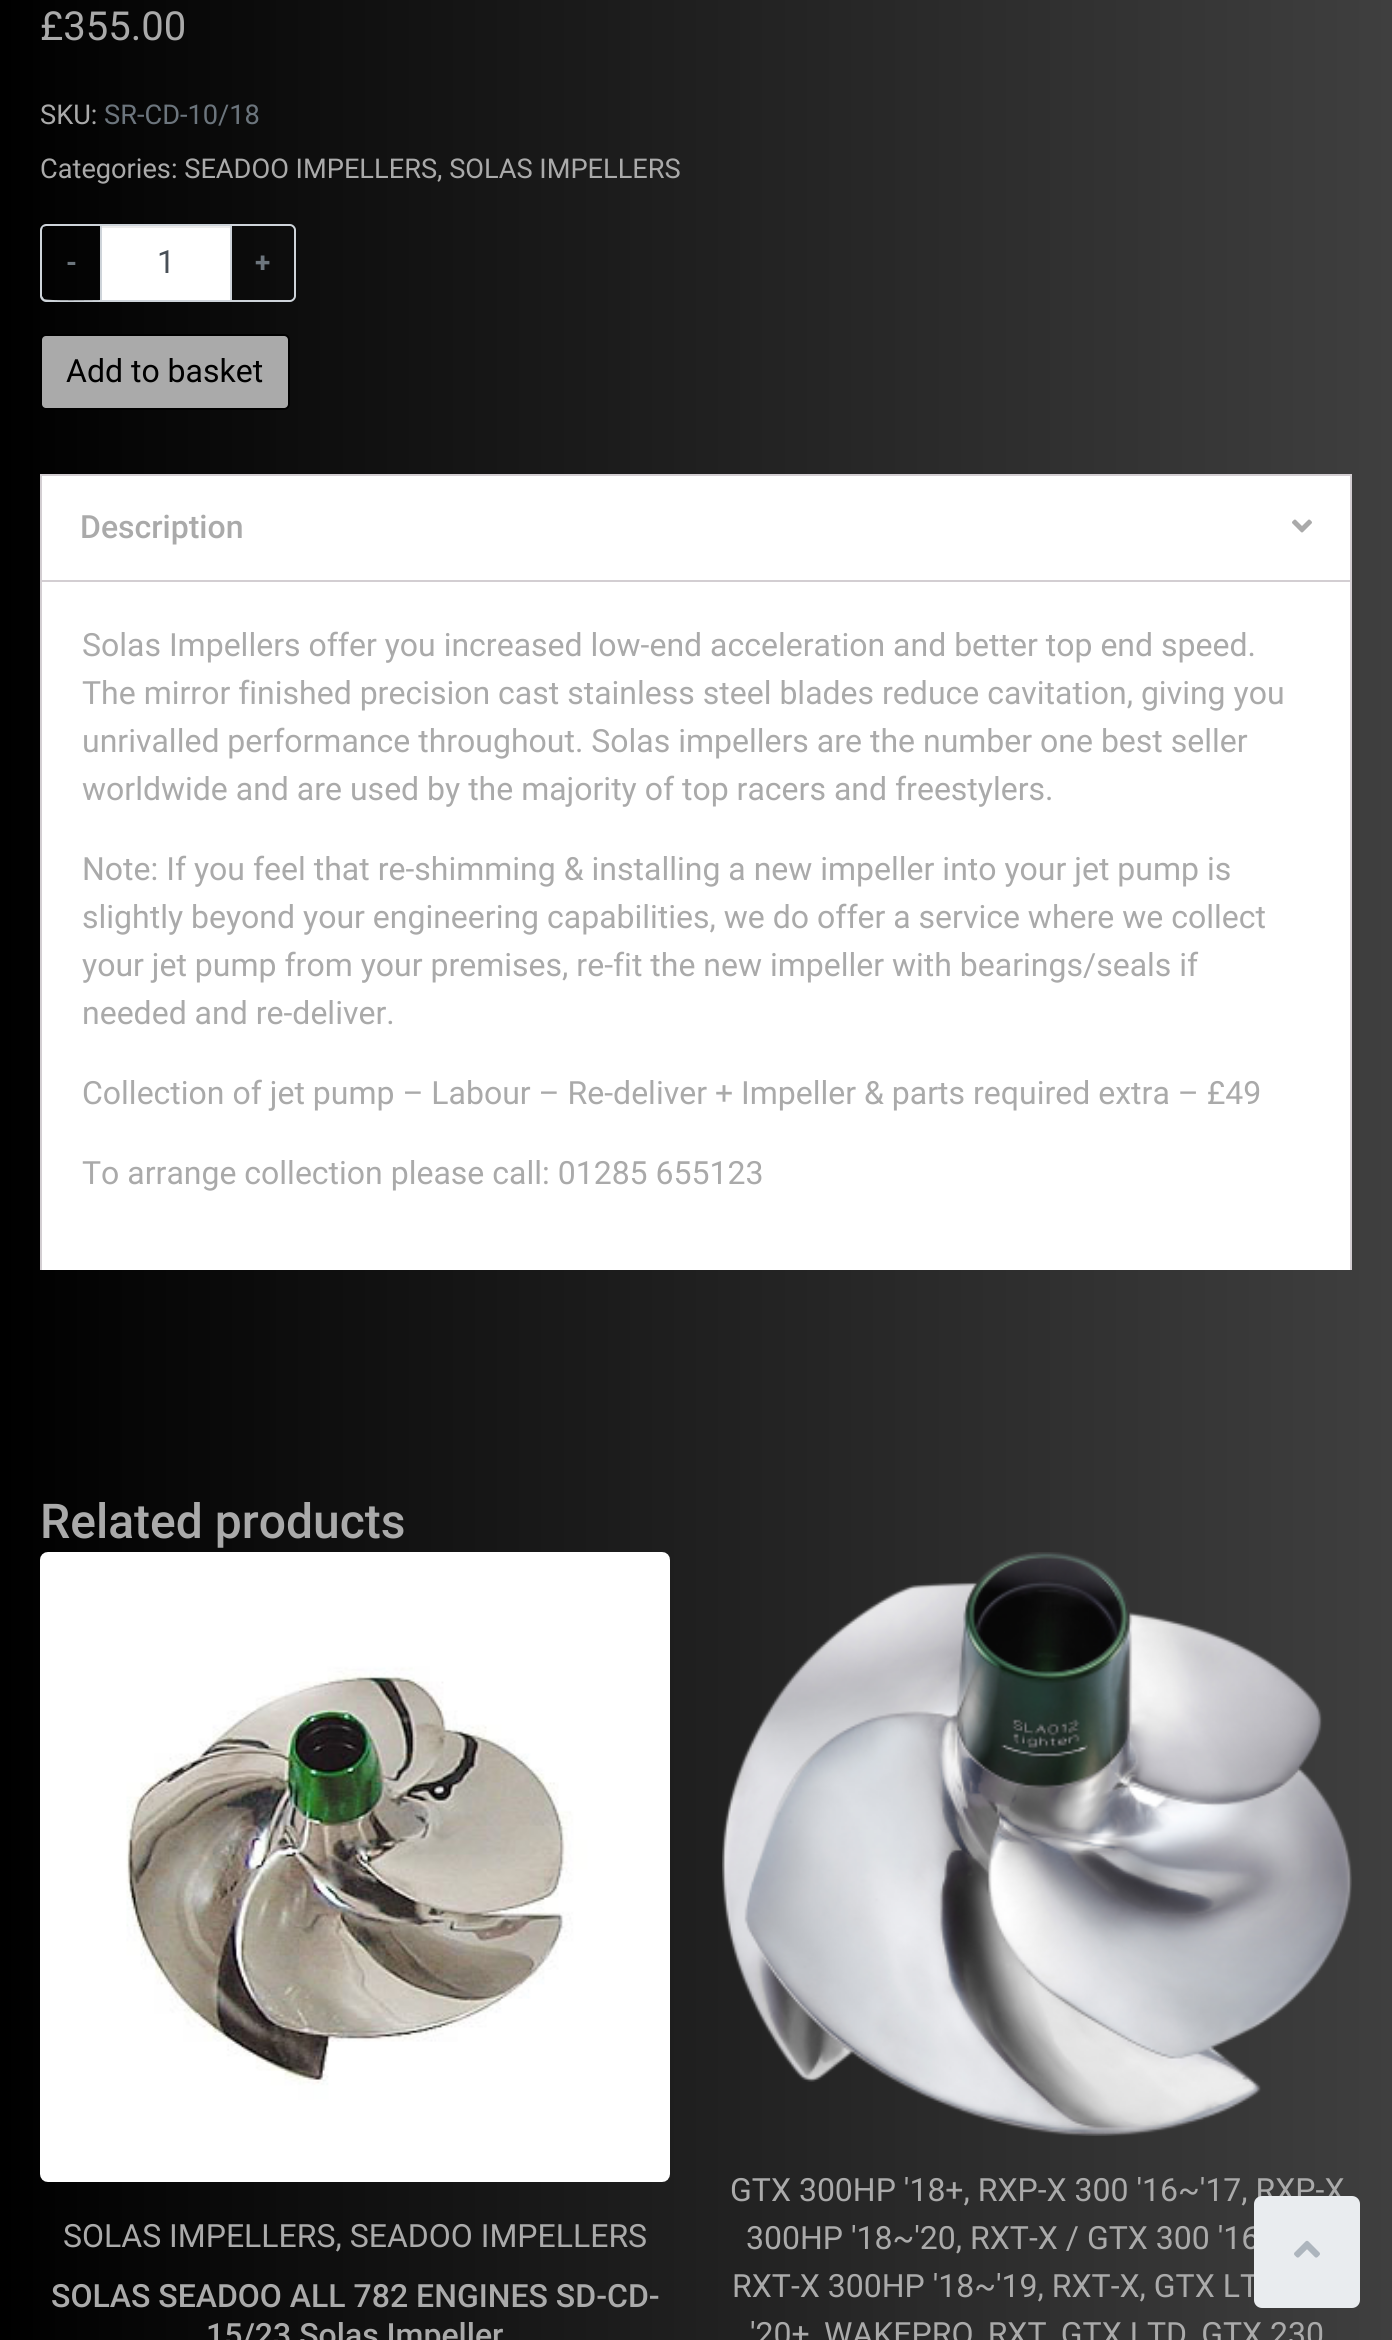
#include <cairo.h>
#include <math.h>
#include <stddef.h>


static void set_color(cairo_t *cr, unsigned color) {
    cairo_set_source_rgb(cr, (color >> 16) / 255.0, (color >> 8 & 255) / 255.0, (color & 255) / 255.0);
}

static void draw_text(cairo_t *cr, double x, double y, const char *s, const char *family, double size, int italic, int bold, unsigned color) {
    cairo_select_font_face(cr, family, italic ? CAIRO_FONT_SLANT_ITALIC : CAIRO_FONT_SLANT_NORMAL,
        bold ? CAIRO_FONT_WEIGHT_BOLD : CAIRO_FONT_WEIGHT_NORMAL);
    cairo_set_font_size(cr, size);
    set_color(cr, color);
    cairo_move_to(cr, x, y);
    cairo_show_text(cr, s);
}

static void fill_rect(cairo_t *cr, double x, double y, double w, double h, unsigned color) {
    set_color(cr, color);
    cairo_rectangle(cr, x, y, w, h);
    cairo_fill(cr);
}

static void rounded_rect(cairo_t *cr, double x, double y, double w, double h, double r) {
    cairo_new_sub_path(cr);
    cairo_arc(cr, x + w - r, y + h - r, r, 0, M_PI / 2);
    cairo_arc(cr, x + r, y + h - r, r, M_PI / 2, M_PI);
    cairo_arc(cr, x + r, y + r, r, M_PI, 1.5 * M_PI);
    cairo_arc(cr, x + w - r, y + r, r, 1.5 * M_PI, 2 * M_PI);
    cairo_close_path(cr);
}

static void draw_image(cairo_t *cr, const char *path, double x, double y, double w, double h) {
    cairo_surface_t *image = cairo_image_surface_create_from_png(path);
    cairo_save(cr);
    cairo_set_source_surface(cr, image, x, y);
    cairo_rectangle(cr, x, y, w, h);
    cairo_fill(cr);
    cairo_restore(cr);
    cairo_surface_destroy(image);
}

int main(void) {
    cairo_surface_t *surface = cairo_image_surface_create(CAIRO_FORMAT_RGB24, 1392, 2340);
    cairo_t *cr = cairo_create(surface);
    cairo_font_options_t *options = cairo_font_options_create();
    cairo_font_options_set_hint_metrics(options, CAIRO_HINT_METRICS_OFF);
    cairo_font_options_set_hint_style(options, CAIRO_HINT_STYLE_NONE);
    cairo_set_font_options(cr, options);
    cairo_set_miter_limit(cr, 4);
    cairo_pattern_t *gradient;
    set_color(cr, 0xFFFFFF);
    cairo_paint(cr);
    gradient = cairo_pattern_create_linear(0, 1050, 1392, 1050);
    cairo_pattern_add_color_stop_rgba(gradient, 0, 0, 0, 0, 1);
    cairo_pattern_add_color_stop_rgba(gradient, 1, 0.247, 0.247, 0.247, 1);
    cairo_set_source(cr, gradient);
    cairo_pattern_destroy(gradient);
    cairo_rectangle(cr, 0, 0, 1392, 2340);
    cairo_fill(cr);
    draw_text(cr, 40, 40, "£355.00", "Roboto", 40, 0, 0, 0xAAAAAA);
    draw_text(cr, 40, 124, "SKU:", "Roboto", 27.2, 0, 0, 0xAAAAAA);
    draw_text(cr, 104, 124, "SR-CD-10/18", "Roboto", 27.2, 0, 0, 0x6C757D);
    draw_text(cr, 40, 178, "Categories: SEADOO IMPELLERS, SOLAS IMPELLERS", "Roboto", 27.2, 0, 0, 0xAAAAAA);
    fill_rect(cr, 102, 228, 128, 72, 0xFFFFFF);
    fill_rect(cr, 102, 226, 128, 2, 0xECECEC);
    cairo_rectangle(cr, 101, 225, 130, 76);
    set_color(cr, 0xCED4DA);
    cairo_stroke(cr);
    cairo_set_fill_rule(cr, CAIRO_FILL_RULE_EVEN_ODD);
    cairo_new_path(cr);
    cairo_move_to(cr, 46, 224);
    cairo_line_to(cr, 102, 224);
    cairo_line_to(cr, 102, 302);
    cairo_line_to(cr, 46, 302);
    cairo_curve_to(cr, 43, 302, 40, 299, 40, 296);
    cairo_line_to(cr, 40, 230);
    cairo_curve_to(cr, 40, 227, 43, 224, 46, 224);
    cairo_close_path(cr);
    cairo_move_to(cr, 46, 226);
    cairo_line_to(cr, 102, 226);
    cairo_line_to(cr, 102, 300);
    cairo_curve_to(cr, 95, 300, 46, 301, 44, 299);
    cairo_line_to(cr, 42, 296);
    cairo_line_to(cr, 42, 230);
    cairo_line_to(cr, 43, 227);
    cairo_close_path(cr);
    cairo_fill(cr);
    draw_text(cr, 66, 272, "-", "Roboto", 28, 0, 1, 0x6C757D);
    draw_text(cr, 157, 273, "1", "Roboto", 32, 0, 0, 0x495057);
    set_color(cr, 0xCED4DA);
    cairo_new_path(cr);
    cairo_move_to(cr, 230, 224);
    cairo_line_to(cr, 290, 224);
    cairo_curve_to(cr, 293, 224, 296, 227, 296, 230);
    cairo_line_to(cr, 296, 296);
    cairo_curve_to(cr, 296, 299, 293, 302, 290, 302);
    cairo_line_to(cr, 230, 302);
    cairo_close_path(cr);
    cairo_move_to(cr, 230, 226);
    cairo_line_to(cr, 290, 226);
    cairo_curve_to(cr, 292, 226, 294, 228, 294, 230);
    cairo_line_to(cr, 294, 296);
    cairo_curve_to(cr, 294, 298, 292, 300, 290, 300);
    cairo_line_to(cr, 230, 300);
    cairo_close_path(cr);
    cairo_fill(cr);
    draw_text(cr, 255, 272, "+", "Roboto", 28, 0, 1, 0x6C757D);
    set_color(cr, 0xAAAAAA);
    rounded_rect(cr, 41, 335, 248, 74, 5);
    cairo_fill_preserve(cr);
    set_color(cr, 0x000000);
    cairo_stroke(cr);
    draw_text(cr, 66, 382, "Add to basket", "Roboto", 32, 0, 0, 0x000000);
    fill_rect(cr, 42, 476, 1308, 794, 0xFFFFFF);
    fill_rect(cr, 40, 474, 1312, 2, 0xD3CED2);
    fill_rect(cr, 1350, 474, 2, 796, 0xD3CED2);
    fill_rect(cr, 40, 474, 2, 796, 0xD3CED2);
    fill_rect(cr, 42, 580, 1308, 2, 0xD3CED2);
    draw_text(cr, 80, 538, "Description", "Roboto Medium", 32, 0, 0, 0xAAAAAA);
    draw_image(cr, "assets/img1.png", 1292, 519, 20, 14);
    draw_text(cr, 82, 656, "Solas Impellers offer you increased low-end acceleration and better top end speed.", "Roboto", 32, 0, 0, 0xAAAAAA);
    draw_text(cr, 82, 704, "The mirror finished precision cast stainless steel blades reduce cavitation, giving you", "Roboto", 32, 0, 0, 0xAAAAAA);
    draw_text(cr, 82, 752, "unrivalled performance throughout. Solas impellers are the number one best seller", "Roboto", 32, 0, 0, 0xAAAAAA);
    draw_text(cr, 82, 800, "worldwide and are used by the majority of top racers and freestylers.", "Roboto", 32, 0, 0, 0xAAAAAA);
    draw_text(cr, 82, 880, "Note: If you feel that re-shimming & installing a new impeller into your jet pump is", "Roboto", 32, 0, 0, 0xAAAAAA);
    draw_text(cr, 82, 928, "slightly beyond your engineering capabilities, we do offer a service where we collect", "Roboto", 32, 0, 0, 0xAAAAAA);
    draw_text(cr, 82, 976, "your jet pump from your premises, re-fit the new impeller with bearings/seals if", "Roboto", 32, 0, 0, 0xAAAAAA);
    draw_text(cr, 82, 1024, "needed and re-deliver.", "Roboto", 32, 0, 0, 0xAAAAAA);
    draw_text(cr, 82, 1104, "Collection of jet pump – Labour – Re-deliver + Impeller & parts required extra – £49", "Roboto", 32, 0, 0, 0xAAAAAA);
    draw_text(cr, 82, 1184, "To arrange collection please call: 01285 655123", "Roboto", 32, 0, 0, 0xAAAAAA);
    draw_text(cr, 40, 1538, "Related products", "Roboto Medium", 48, 0, 0, 0xAAAAAA);
    draw_image(cr, "assets/img2.png", 40, 1552, 630, 630);
    draw_text(cr, 63, 2247, "SOLAS IMPELLERS, SEADOO IMPELLERS", "Roboto", 32, 0, 0, 0xAAAAAA);
    draw_text(cr, 51, 2307, "SOLAS SEADOO ALL 782 ENGINES SD-CD-", "Roboto Medium", 32, 0, 0, 0xAAAAAA);
    draw_text(cr, 206, 2346, "15/23 Solas Impeller", "Roboto Medium", 32, 0, 0, 0xAAAAAA);
    draw_image(cr, "assets/img3.png", 722, 1552, 630, 584);
    draw_text(cr, 730, 2201, "GTX 300HP '18+, RXP-X 300 '16~'17, RXP-X", "Roboto", 32, 0, 0, 0xAAAAAA);
    draw_text(cr, 746, 2249, "300HP '18~'20, RXT-X / GTX 300 '16", "Roboto", 32, 0, 0, 0xAAAAAA);
    draw_text(cr, 732, 2297, "RXT-X 300HP '18~'19, RXT-X, GTX LT", "Roboto", 32, 0, 0, 0xAAAAAA);
    draw_text(cr, 750, 2345, "'20+, WAKEPRO, RXT, GTX LTD, GTX 230", "Roboto", 32, 0, 0, 0xAAAAAA);
    set_color(cr, 0xE9ECEF);
    rounded_rect(cr, 1255, 2197, 104, 110, 7);
    cairo_fill_preserve(cr);
    cairo_stroke(cr);
    draw_image(cr, "assets/img4.png", 1294, 2240, 26, 18);
    cairo_surface_write_to_png(surface, "output.png");
    cairo_font_options_destroy(options);
    cairo_destroy(cr);
    cairo_surface_destroy(surface);
    return 0;
}
